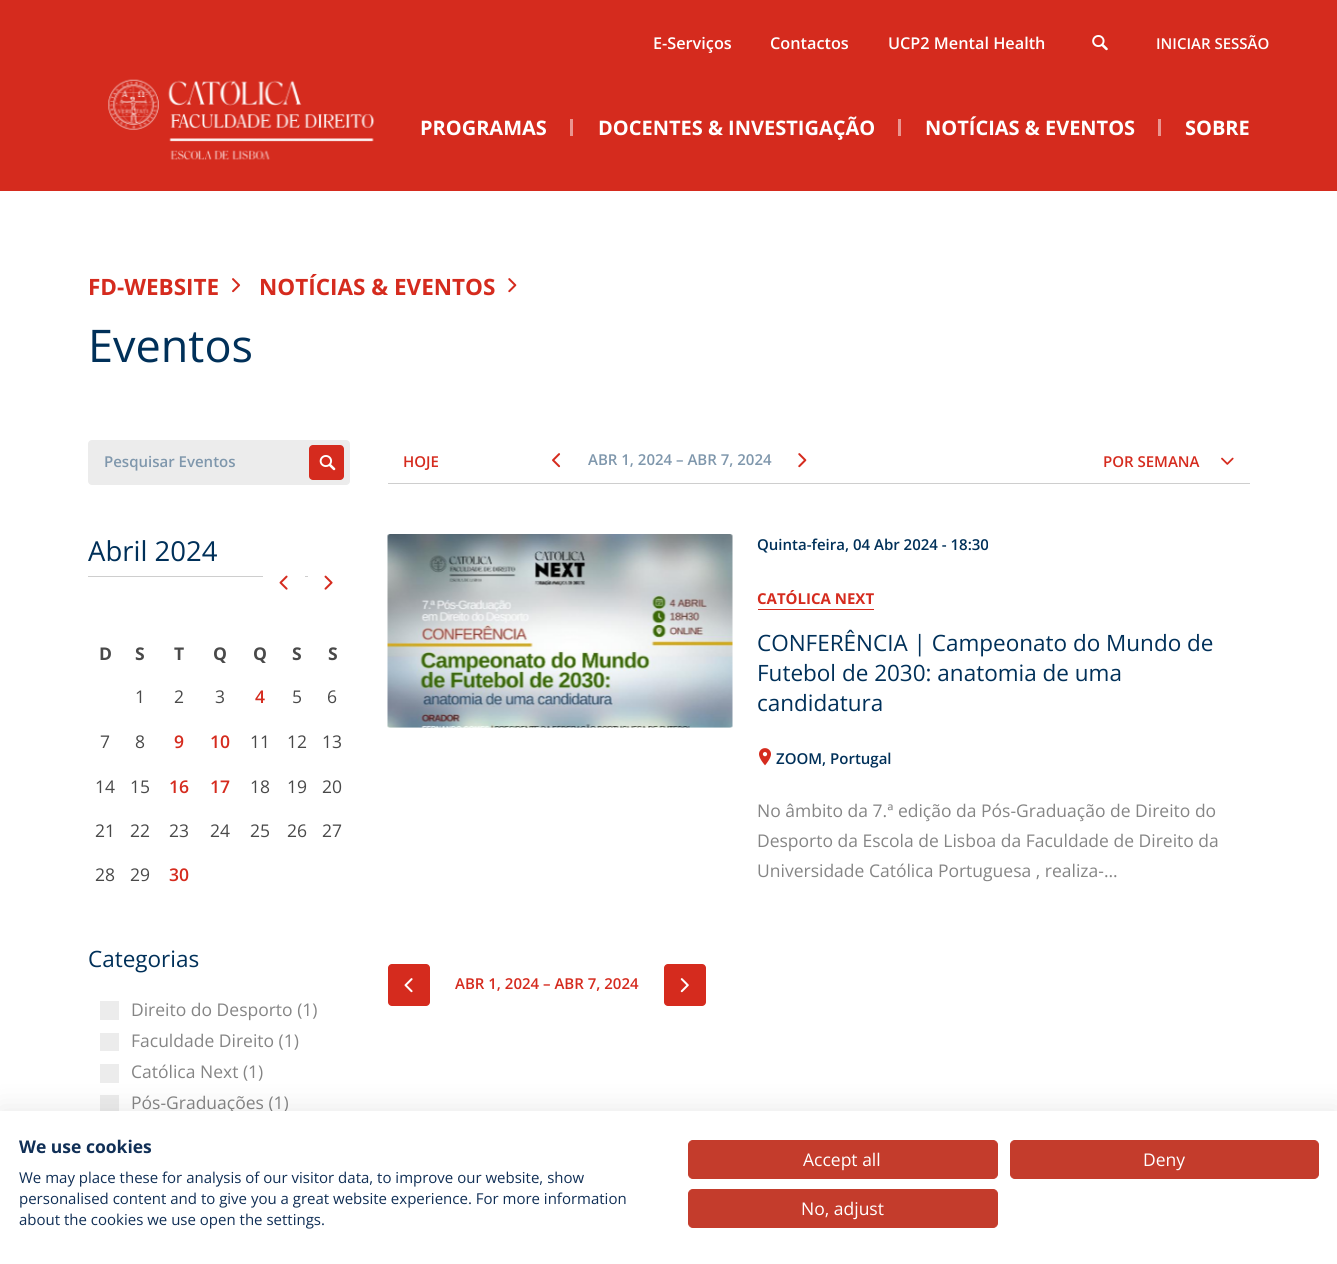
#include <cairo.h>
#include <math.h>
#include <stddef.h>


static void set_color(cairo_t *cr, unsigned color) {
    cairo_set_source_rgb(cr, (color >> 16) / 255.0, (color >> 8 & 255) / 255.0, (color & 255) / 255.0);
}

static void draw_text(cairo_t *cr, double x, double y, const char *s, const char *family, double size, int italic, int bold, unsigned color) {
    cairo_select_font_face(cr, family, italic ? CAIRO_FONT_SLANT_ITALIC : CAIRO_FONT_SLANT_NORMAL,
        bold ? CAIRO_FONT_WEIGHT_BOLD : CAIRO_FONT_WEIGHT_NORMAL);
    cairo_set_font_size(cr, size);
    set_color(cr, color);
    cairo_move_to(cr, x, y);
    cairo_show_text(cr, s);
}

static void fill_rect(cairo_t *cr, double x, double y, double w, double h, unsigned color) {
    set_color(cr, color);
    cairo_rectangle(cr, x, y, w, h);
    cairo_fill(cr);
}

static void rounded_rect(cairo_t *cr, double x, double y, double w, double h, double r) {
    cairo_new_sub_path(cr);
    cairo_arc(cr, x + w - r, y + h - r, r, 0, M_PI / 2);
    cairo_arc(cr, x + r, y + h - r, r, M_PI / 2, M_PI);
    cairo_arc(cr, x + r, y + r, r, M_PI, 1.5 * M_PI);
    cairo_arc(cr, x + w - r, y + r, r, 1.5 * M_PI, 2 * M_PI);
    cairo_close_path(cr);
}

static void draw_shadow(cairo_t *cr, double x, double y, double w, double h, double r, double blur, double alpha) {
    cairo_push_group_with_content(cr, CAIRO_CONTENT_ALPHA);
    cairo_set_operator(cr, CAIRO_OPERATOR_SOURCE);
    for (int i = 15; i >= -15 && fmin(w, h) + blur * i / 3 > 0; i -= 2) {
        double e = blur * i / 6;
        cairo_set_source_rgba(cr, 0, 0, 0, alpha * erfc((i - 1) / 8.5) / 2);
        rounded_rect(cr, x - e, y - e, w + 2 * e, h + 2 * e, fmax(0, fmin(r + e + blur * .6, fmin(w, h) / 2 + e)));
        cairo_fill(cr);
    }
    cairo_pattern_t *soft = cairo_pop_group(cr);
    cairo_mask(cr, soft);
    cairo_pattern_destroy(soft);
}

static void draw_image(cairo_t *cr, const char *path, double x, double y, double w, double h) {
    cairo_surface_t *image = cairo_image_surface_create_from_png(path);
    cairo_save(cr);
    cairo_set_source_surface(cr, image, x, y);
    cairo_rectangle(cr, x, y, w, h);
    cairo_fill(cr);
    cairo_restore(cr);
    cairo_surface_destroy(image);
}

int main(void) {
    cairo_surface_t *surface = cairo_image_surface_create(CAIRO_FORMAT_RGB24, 1337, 1264);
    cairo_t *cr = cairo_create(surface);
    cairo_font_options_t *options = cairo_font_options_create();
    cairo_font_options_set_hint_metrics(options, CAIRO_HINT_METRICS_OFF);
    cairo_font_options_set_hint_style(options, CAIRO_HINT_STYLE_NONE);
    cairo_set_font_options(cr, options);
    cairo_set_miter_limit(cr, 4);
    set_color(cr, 0xFFFFFF);
    cairo_paint(cr);
    fill_rect(cr, 0, 0, 1337, 191, 0xD52B1E);
    draw_text(cr, 653, 49, "E-Serviços", "Open Sans SemiBold", 16.25, 0, 0, 0xFFFFFF);
    draw_text(cr, 770, 49, "Contactos", "Open Sans SemiBold", 16.25, 0, 0, 0xFFFFFF);
    draw_text(cr, 888, 49, "UCP2 Mental Health", "Open Sans SemiBold", 16.25, 0, 0, 0xFFFFFF);
    draw_image(cr, "assets/img1.png", 1092, 35, 16, 16);
    draw_text(cr, 1156, 49, "INICIAR SESSÃO", "Open Sans SemiBold", 15, 0, 0, 0xFFFFFF);
    draw_image(cr, "assets/img2.png", 108, 79, 267, 81);
    draw_text(cr, 420, 135, "PROGRAMAS", "Open Sans", 20, 0, 1, 0xFFFFFF);
    fill_rect(cr, 570, 119, 3, 17, 0xEA958F);
    draw_text(cr, 598, 135, "DOCENTES & INVESTIGAÇÃO", "Open Sans", 20, 0, 1, 0xFFFFFF);
    fill_rect(cr, 898, 119, 3, 17, 0xEA958F);
    draw_text(cr, 925, 135, "NOTÍCIAS & EVENTOS", "Open Sans", 20, 0, 1, 0xFFFFFF);
    fill_rect(cr, 1158, 119, 3, 17, 0xEA958F);
    draw_text(cr, 1185, 135, "SOBRE", "Open Sans", 20, 0, 1, 0xFFFFFF);
    draw_text(cr, 88, 295, "FD-WEBSITE", "Open Sans", 22.5, 0, 1, 0xD52B1E);
    draw_image(cr, "assets/img3.png", 232, 278, 9, 15);
    draw_text(cr, 259, 295, "NOTÍCIAS & EVENTOS", "Open Sans", 22.5, 0, 1, 0xD52B1E);
    draw_image(cr, "assets/img4.png", 508, 278, 9, 15);
    draw_text(cr, 88, 362, "Eventos", "Open Sans", 45, 0, 0, 0x003059);
    set_color(cr, 0xECECEC);
    rounded_rect(cr, 88.5, 440.5, 261, 44, 3.5);
    cairo_fill_preserve(cr);
    cairo_set_line_width(cr, 1);
    cairo_stroke(cr);
    draw_text(cr, 104, 467, "Pesquisar Eventos", "Open Sans SemiBold", 15, 0, 0, 0x7F97AC);
    set_color(cr, 0xD52B1E);
    rounded_rect(cr, 309, 445, 35, 35, 4);
    cairo_fill(cr);
    draw_image(cr, "assets/img5.png", 319, 455, 17, 16);
    fill_rect(cr, 88, 576, 220, 1, 0xCECECE);
    draw_text(cr, 88, 561, "Abril 2024", "Open Sans", 27.5, 0, 0, 0x003059);
    set_color(cr, 0xFFFFFF);
    cairo_new_path(cr);
    cairo_move_to(cr, 267, 563);
    cairo_line_to(cr, 302.5, 563);
    cairo_curve_to(cr, 304, 563, 305, 564, 305, 565.5);
    cairo_line_to(cr, 305, 602.5);
    cairo_curve_to(cr, 305, 604, 304, 605, 302.5, 605);
    cairo_line_to(cr, 267, 605);
    cairo_curve_to(cr, 265, 605, 263, 603, 263, 601);
    cairo_line_to(cr, 263, 567);
    cairo_curve_to(cr, 263, 565, 265, 563, 267, 563);
    cairo_close_path(cr);
    cairo_fill(cr);
    draw_image(cr, "assets/img6.png", 279, 575, 9, 15);
    draw_image(cr, "assets/img7.png", 324, 575, 9, 15);
    draw_text(cr, 99, 660, "D", "Open Sans", 17.5, 0, 1, 0x494949);
    draw_text(cr, 135, 660, "S", "Open Sans", 17.5, 0, 1, 0x494949);
    draw_text(cr, 174, 660, "T", "Open Sans", 17.5, 0, 1, 0x494949);
    draw_text(cr, 213, 660, "Q", "Open Sans", 17.5, 0, 1, 0x494949);
    draw_text(cr, 253, 660, "Q", "Open Sans", 17.5, 0, 1, 0x494949);
    draw_text(cr, 292, 660, "S", "Open Sans", 17.5, 0, 1, 0x494949);
    draw_text(cr, 328, 660, "S", "Open Sans", 17.5, 0, 1, 0x494949);
    draw_text(cr, 135, 703, "1", "Open Sans", 17.5, 0, 0, 0x494949);
    draw_text(cr, 174, 703, "2", "Open Sans", 17.5, 0, 0, 0x494949);
    draw_text(cr, 215, 703, "3", "Open Sans", 17.5, 0, 0, 0x494949);
    draw_text(cr, 255, 703, "4", "Open Sans SemiBold", 17.5, 0, 0, 0xD52B1E);
    draw_text(cr, 292, 703, "5", "Open Sans", 17.5, 0, 0, 0x494949);
    draw_text(cr, 327, 703, "6", "Open Sans", 17.5, 0, 0, 0x494949);
    draw_text(cr, 100, 748, "7", "Open Sans", 17.5, 0, 0, 0x494949);
    draw_text(cr, 135, 748, "8", "Open Sans", 17.5, 0, 0, 0x494949);
    draw_text(cr, 174, 748, "9", "Open Sans SemiBold", 17.5, 0, 0, 0xD52B1E);
    draw_text(cr, 210, 748, "10", "Open Sans SemiBold", 17.5, 0, 0, 0xD52B1E);
    draw_text(cr, 250, 748, "11", "Open Sans", 17.5, 0, 0, 0x494949);
    draw_text(cr, 287, 748, "12", "Open Sans", 17.5, 0, 0, 0x494949);
    draw_text(cr, 322, 748, "13", "Open Sans", 17.5, 0, 0, 0x494949);
    draw_text(cr, 95, 793, "14", "Open Sans", 17.5, 0, 0, 0x494949);
    draw_text(cr, 130, 793, "15", "Open Sans", 17.5, 0, 0, 0x494949);
    draw_text(cr, 169, 793, "16", "Open Sans SemiBold", 17.5, 0, 0, 0xD52B1E);
    draw_text(cr, 210, 793, "17", "Open Sans SemiBold", 17.5, 0, 0, 0xD52B1E);
    draw_text(cr, 250, 793, "18", "Open Sans", 17.5, 0, 0, 0x494949);
    draw_text(cr, 287, 793, "19", "Open Sans", 17.5, 0, 0, 0x494949);
    draw_text(cr, 322, 793, "20", "Open Sans", 17.5, 0, 0, 0x494949);
    draw_text(cr, 95, 837, "21", "Open Sans", 17.5, 0, 0, 0x494949);
    draw_text(cr, 130, 837, "22", "Open Sans", 17.5, 0, 0, 0x494949);
    draw_text(cr, 169, 837, "23", "Open Sans", 17.5, 0, 0, 0x494949);
    draw_text(cr, 210, 837, "24", "Open Sans", 17.5, 0, 0, 0x494949);
    draw_text(cr, 250, 837, "25", "Open Sans", 17.5, 0, 0, 0x494949);
    draw_text(cr, 287, 837, "26", "Open Sans", 17.5, 0, 0, 0x494949);
    draw_text(cr, 322, 837, "27", "Open Sans", 17.5, 0, 0, 0x494949);
    draw_text(cr, 95, 881, "28", "Open Sans", 17.5, 0, 0, 0x494949);
    draw_text(cr, 130, 881, "29", "Open Sans", 17.5, 0, 0, 0x494949);
    draw_text(cr, 169, 881, "30", "Open Sans SemiBold", 17.5, 0, 0, 0xD52B1E);
    draw_text(cr, 88, 967, "Categorias", "Open Sans", 22.5, 0, 0, 0x003059);
    fill_rect(cr, 100, 1001, 19, 19, 0xECECEC);
    draw_text(cr, 131, 1016, "Direito do Desporto (1)", "Open Sans", 17.5, 0, 0, 0x858585);
    fill_rect(cr, 100, 1033, 19, 18, 0xECECEC);
    draw_text(cr, 131, 1047, "Faculdade Direito (1)", "Open Sans", 17.5, 0, 0, 0x858585);
    fill_rect(cr, 100, 1064, 19, 19, 0xECECEC);
    draw_text(cr, 131, 1078, "Católica Next (1)", "Open Sans", 17.5, 0, 0, 0x858585);
    fill_rect(cr, 100, 1095, 19, 16, 0xECECEC);
    draw_text(cr, 131, 1109, "Pós-Graduações (1)", "Open Sans", 17.5, 0, 0, 0x858585);
    fill_rect(cr, 388, 483, 862, 1, 0xCECECE);
    draw_text(cr, 403, 467, "HOJE", "Open Sans SemiBold", 15, 0, 0, 0xD52B1E);
    draw_image(cr, "assets/img8.png", 552, 453, 9, 15);
    draw_text(cr, 588, 465, "ABR 1, 2024 – ABR 7, 2024", "Open Sans SemiBold", 15, 0, 0, 0x7F97AC);
    draw_image(cr, "assets/img4.png", 798, 453, 9, 15);
    draw_text(cr, 1103, 467, "POR SEMANA", "Open Sans SemiBold", 15, 0, 0, 0xD52B1E);
    draw_image(cr, "assets/img9.png", 1221, 457, 13, 8);
    draw_image(cr, "assets/img10.png", 387, 534, 346, 194);
    draw_text(cr, 757, 550, "Quinta-feira, 04 Abr 2024 - 18:30", "Open Sans SemiBold", 15, 0, 0, 0x003059);
    draw_text(cr, 757, 604, "CATÓLICA NEXT", "Open Sans", 15, 0, 1, 0xD52B1E);
    fill_rect(cr, 758, 609, 116, 1, 0xD52B1E);
    draw_text(cr, 757, 651, "CONFERÊNCIA | Campeonato do Mundo de", "Open Sans", 22.5, 0, 0, 0x003059);
    draw_text(cr, 757, 681, "Futebol de 2030: anatomia de uma", "Open Sans", 22.5, 0, 0, 0x003059);
    draw_text(cr, 757, 711, "candidatura", "Open Sans", 22.5, 0, 0, 0x003059);
    draw_image(cr, "assets/img11.png", 759, 748, 12, 18);
    draw_text(cr, 776, 764, "ZOOM, Portugal", "Open Sans SemiBold", 15, 0, 0, 0x003059);
    draw_text(cr, 757, 817, "No âmbito da 7.ª edição da Pós-Graduação de Direito do", "Open Sans", 17.5, 0, 0, 0x858585);
    draw_text(cr, 757, 847, "Desporto da Escola de Lisboa da Faculdade de Direito da", "Open Sans", 17.5, 0, 0, 0x858585);
    draw_text(cr, 757, 877, "Universidade Católica Portuguesa , realiza-...", "Open Sans", 17.5, 0, 0, 0x858585);
    set_color(cr, 0xD52B1E);
    rounded_rect(cr, 388, 964, 42, 42, 4);
    cairo_fill(cr);
    draw_image(cr, "assets/img12.png", 404, 978, 9, 15);
    draw_text(cr, 455, 989, "ABR 1, 2024 – ABR 7, 2024", "Open Sans SemiBold", 15, 0, 0, 0xD52B1E);
    rounded_rect(cr, 664, 964, 42, 42, 4);
    cairo_fill(cr);
    draw_image(cr, "assets/img13.png", 680, 978, 9, 15);
    set_color(cr, 0x000000);
    draw_shadow(cr, 0, 1111, 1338, 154, 0, 15, 0.1);
    fill_rect(cr, 0, 1111, 1337, 153, 0xFFFFFF);
    draw_text(cr, 19, 1153, "We use cookies", "Open Sans", 17.5, 0, 1, 0x102F56);
    draw_text(cr, 19, 1183, "We may place these for analysis of our visitor data, to improve our website, show", "Open Sans", 15, 0, 0, 0x102F56);
    draw_text(cr, 19, 1204, "personalised content and to give you a great website experience. For more information", "Open Sans", 15, 0, 0, 0x102F56);
    draw_text(cr, 19, 1225, "about the cookies we use open the settings.", "Open Sans", 15, 0, 0, 0x102F56);
    set_color(cr, 0xC43C2C);
    rounded_rect(cr, 688.5, 1140.5, 309, 38, 4.5);
    cairo_fill_preserve(cr);
    cairo_stroke(cr);
    draw_text(cr, 803, 1166, "Accept all", "Open Sans", 17.5, 0, 0, 0xFFFFFF);
    set_color(cr, 0xC43C2C);
    rounded_rect(cr, 1010.5, 1140.5, 308, 38, 4.5);
    cairo_fill_preserve(cr);
    cairo_stroke(cr);
    draw_text(cr, 1143, 1166, "Deny", "Open Sans", 17.5, 0, 0, 0xFFFFFF);
    set_color(cr, 0xC43C2C);
    rounded_rect(cr, 688.5, 1189.5, 309, 38, 4.5);
    cairo_fill_preserve(cr);
    cairo_stroke(cr);
    draw_text(cr, 801, 1215, "No, adjust", "Open Sans", 17.5, 0, 0, 0xFFFFFF);
    cairo_surface_write_to_png(surface, "output.png");
    cairo_font_options_destroy(options);
    cairo_destroy(cr);
    cairo_surface_destroy(surface);
    return 0;
}
